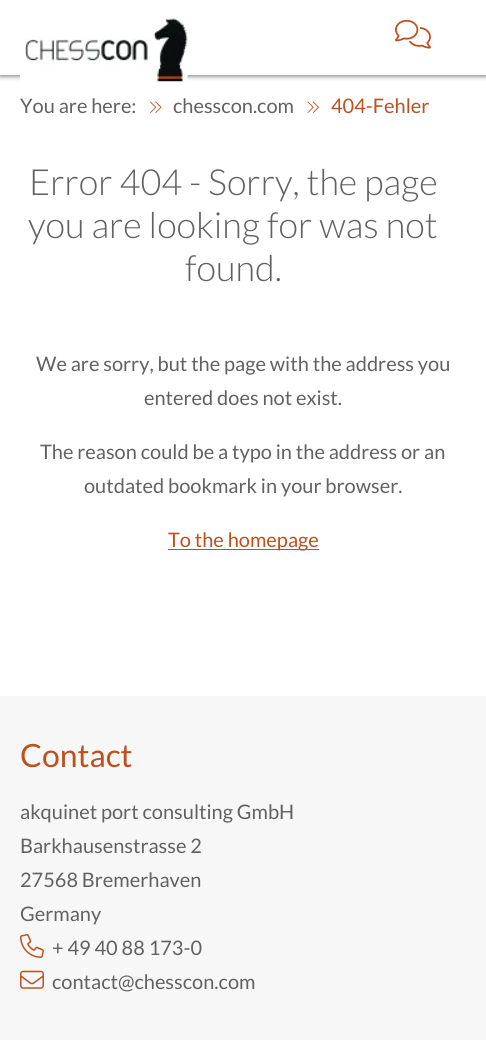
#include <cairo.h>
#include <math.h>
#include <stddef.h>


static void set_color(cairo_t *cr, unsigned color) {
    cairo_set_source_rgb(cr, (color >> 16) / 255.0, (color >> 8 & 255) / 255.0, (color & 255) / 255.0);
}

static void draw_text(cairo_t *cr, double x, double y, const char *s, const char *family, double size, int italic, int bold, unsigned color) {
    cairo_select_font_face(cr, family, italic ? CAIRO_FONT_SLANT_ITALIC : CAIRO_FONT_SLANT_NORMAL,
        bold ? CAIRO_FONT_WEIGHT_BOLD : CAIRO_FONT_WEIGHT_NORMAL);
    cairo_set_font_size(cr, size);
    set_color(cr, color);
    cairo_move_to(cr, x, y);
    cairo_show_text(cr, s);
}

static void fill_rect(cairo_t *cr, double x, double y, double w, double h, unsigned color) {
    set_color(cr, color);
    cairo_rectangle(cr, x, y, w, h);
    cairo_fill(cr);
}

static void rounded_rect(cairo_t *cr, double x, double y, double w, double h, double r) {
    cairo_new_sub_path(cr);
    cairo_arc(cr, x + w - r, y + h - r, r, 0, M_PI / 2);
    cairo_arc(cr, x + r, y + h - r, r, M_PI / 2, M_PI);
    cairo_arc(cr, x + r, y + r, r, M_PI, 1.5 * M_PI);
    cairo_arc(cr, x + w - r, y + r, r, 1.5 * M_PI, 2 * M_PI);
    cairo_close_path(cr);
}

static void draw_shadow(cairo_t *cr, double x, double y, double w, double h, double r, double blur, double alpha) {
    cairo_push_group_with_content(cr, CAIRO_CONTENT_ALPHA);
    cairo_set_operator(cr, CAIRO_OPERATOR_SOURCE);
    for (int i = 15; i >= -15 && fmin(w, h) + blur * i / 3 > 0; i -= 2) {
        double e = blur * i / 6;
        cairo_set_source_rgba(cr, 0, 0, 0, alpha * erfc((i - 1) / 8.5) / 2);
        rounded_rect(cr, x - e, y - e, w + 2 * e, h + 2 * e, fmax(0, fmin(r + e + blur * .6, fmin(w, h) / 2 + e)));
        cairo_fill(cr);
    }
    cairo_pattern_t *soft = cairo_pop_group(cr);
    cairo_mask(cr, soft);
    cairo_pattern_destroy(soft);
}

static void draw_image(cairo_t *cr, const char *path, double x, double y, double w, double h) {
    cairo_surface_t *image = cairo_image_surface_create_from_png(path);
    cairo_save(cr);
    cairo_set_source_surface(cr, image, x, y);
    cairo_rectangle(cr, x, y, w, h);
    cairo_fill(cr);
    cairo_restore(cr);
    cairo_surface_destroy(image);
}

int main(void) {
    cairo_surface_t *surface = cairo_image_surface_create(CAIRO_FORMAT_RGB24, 486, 1040);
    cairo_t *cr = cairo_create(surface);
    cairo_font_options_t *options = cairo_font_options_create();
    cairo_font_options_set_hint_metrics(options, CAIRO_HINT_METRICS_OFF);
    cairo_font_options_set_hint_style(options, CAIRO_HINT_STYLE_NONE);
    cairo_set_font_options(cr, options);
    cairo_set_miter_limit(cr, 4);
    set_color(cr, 0xFFFFFF);
    cairo_paint(cr);
    cairo_save(cr);
    cairo_rectangle(cr, 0, 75, 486, 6);
    cairo_clip(cr);
    set_color(cr, 0x737171);
    draw_shadow(cr, 0, 1, 486, 75, 0, 2.5, 1);
    cairo_restore(cr);
    draw_image(cr, "assets/img1.png", 20, 18, 168, 64);
    draw_image(cr, "assets/img2.png", 395, 19, 36, 30);
    draw_text(cr, 20, 113, "You are here:", "Lato", 20, 0, 0, 0x626161);
    draw_image(cr, "assets/img3.png", 150, 101, 12, 12);
    draw_text(cr, 173, 113, "chesscon.com", "Lato", 20, 0, 0, 0x626161);
    draw_image(cr, "assets/img4.png", 307, 101, 12, 12);
    draw_text(cr, 331, 113, "404-Fehler", "Lato", 20, 0, 0, 0xBE501E);
    draw_text(cr, 29, 195, "Error 404 - Sorry, the page", "Lato Light", 36, 0, 0, 0x626161);
    draw_text(cr, 28, 238, "you are looking for was not", "Lato Light", 36, 0, 0, 0x626161);
    draw_text(cr, 185, 281, "found.", "Lato Light", 36, 0, 0, 0x626161);
    draw_text(cr, 36, 371, "We are sorry, but the page with the address you", "Lato", 20, 0, 0, 0x626161);
    draw_text(cr, 144, 405, "entered does not exist.", "Lato", 20, 0, 0, 0x626161);
    draw_text(cr, 40, 459, "The reason could be a typo in the address or an", "Lato", 20, 0, 0, 0x626161);
    draw_text(cr, 84, 493, "outdated bookmark in your browser.", "Lato", 20, 0, 0, 0x626161);
    fill_rect(cr, 168, 549, 151, 1, 0xBE501E);
    draw_text(cr, 168, 547, "To the homepage", "Lato", 20, 0, 0, 0xBE501E);
    fill_rect(cr, 0, 696, 486, 344, 0xF7F7F7);
    draw_text(cr, 20, 767, "Contact", "Lato", 32, 0, 0, 0xBE501E);
    draw_text(cr, 20, 819, "akquinet port consulting GmbH", "Lato", 20, 0, 0, 0x626161);
    draw_text(cr, 20, 853, "Barkhausenstrasse 2", "Lato", 20, 0, 0, 0x626161);
    draw_text(cr, 20, 887, "27568 Bremerhaven", "Lato", 20, 0, 0, 0x626161);
    draw_text(cr, 20, 921, "Germany", "Lato", 20, 0, 0, 0x626161);
    draw_image(cr, "assets/img5.png", 20, 934, 24, 24);
    draw_text(cr, 52, 955, "+ 49 40 88 173-0", "Lato", 20, 0, 0, 0x626161);
    draw_image(cr, "assets/img6.png", 20, 970, 24, 19);
    draw_text(cr, 52, 989, "contact@chesscon.com", "Lato", 20, 0, 0, 0x626161);
    cairo_surface_write_to_png(surface, "output.png");
    cairo_font_options_destroy(options);
    cairo_destroy(cr);
    cairo_surface_destroy(surface);
    return 0;
}
